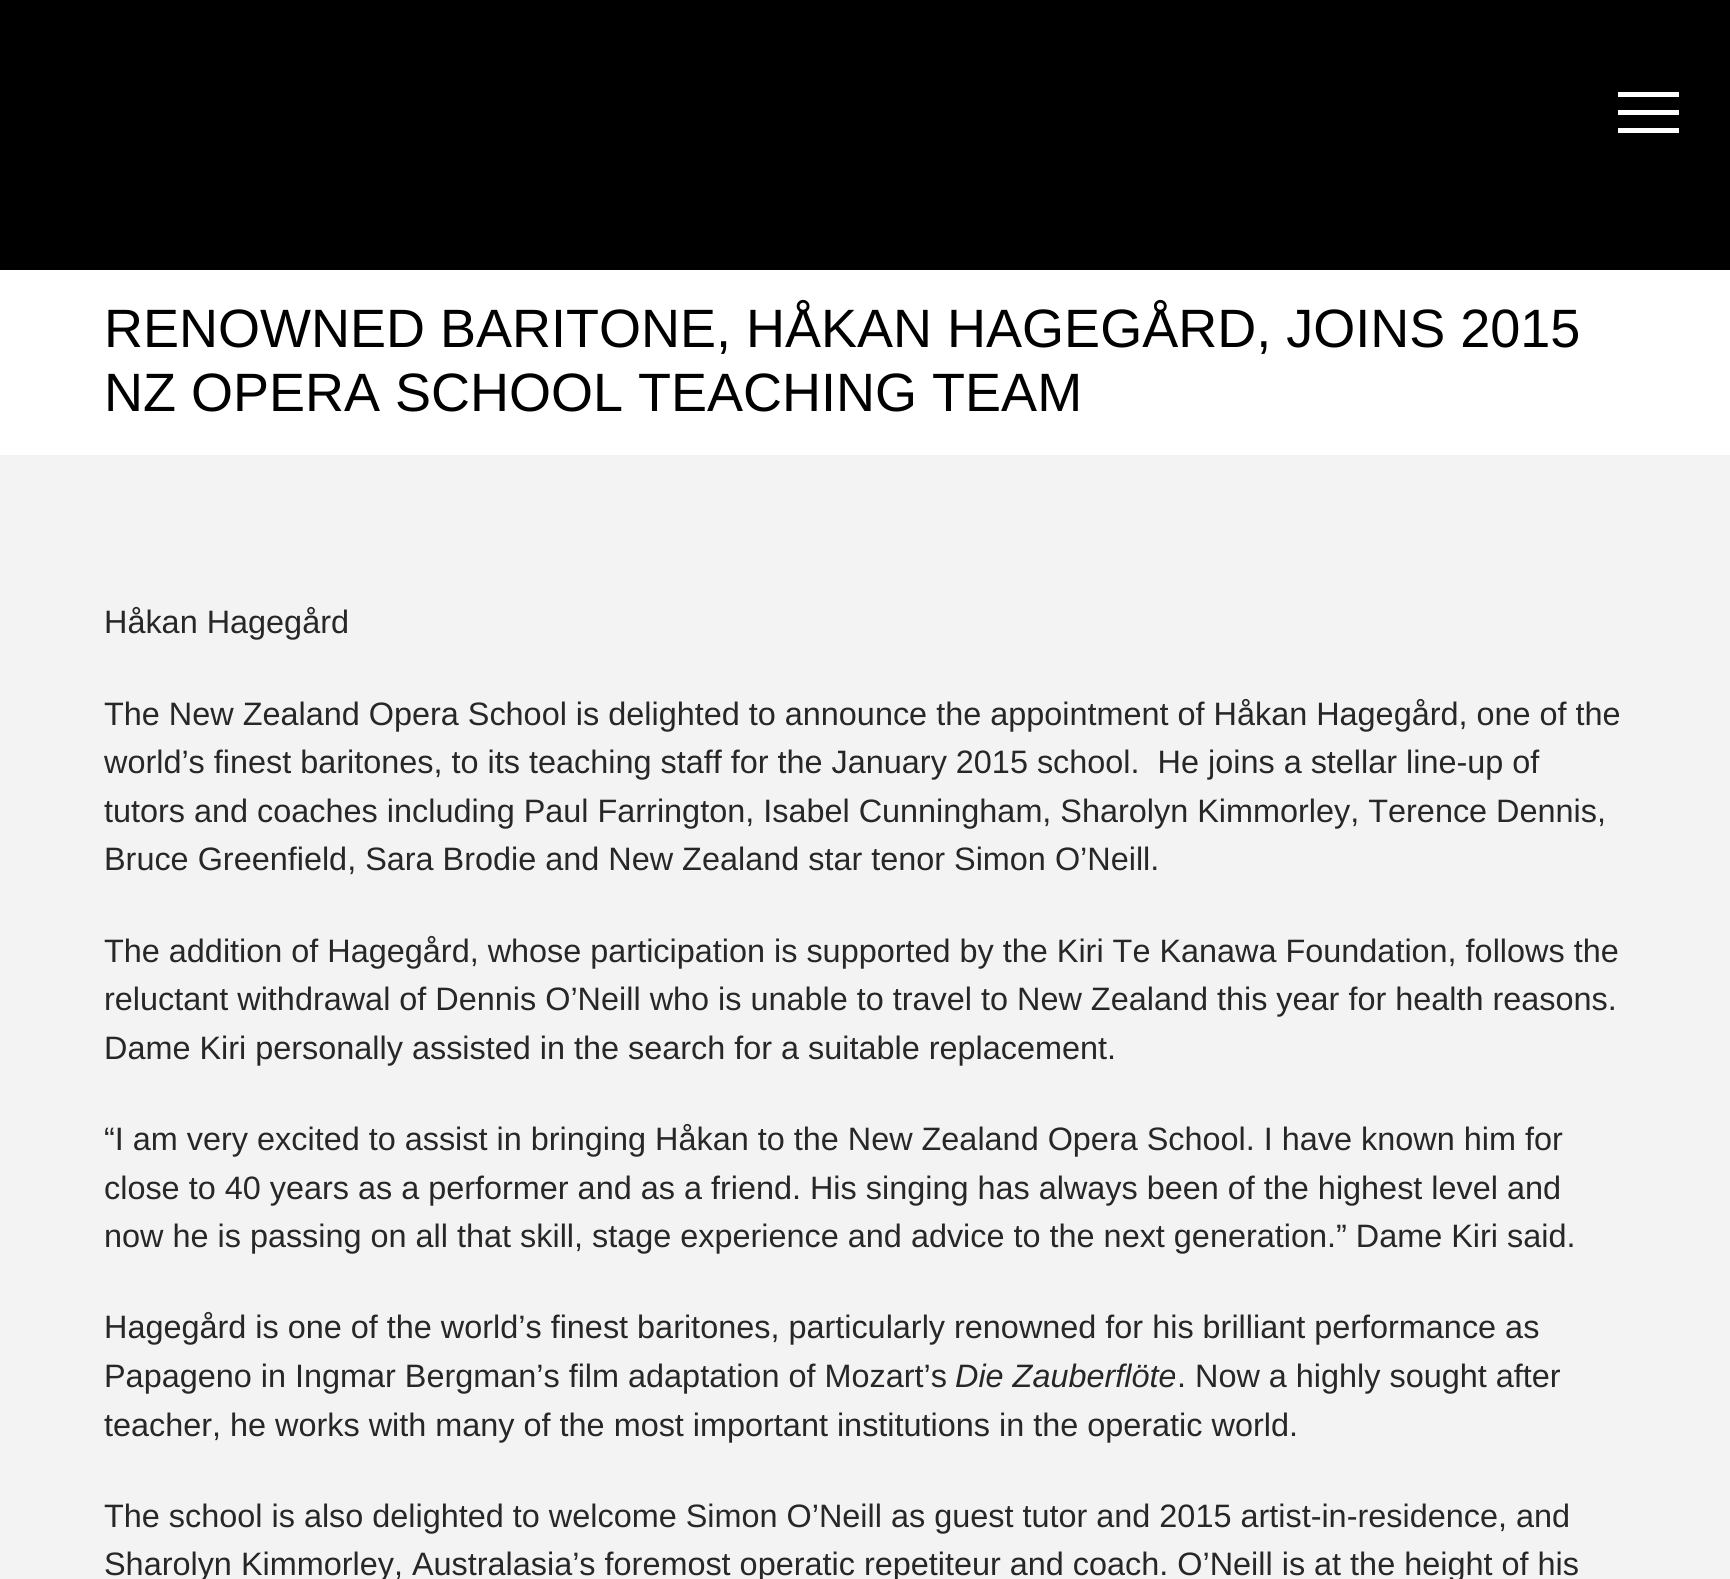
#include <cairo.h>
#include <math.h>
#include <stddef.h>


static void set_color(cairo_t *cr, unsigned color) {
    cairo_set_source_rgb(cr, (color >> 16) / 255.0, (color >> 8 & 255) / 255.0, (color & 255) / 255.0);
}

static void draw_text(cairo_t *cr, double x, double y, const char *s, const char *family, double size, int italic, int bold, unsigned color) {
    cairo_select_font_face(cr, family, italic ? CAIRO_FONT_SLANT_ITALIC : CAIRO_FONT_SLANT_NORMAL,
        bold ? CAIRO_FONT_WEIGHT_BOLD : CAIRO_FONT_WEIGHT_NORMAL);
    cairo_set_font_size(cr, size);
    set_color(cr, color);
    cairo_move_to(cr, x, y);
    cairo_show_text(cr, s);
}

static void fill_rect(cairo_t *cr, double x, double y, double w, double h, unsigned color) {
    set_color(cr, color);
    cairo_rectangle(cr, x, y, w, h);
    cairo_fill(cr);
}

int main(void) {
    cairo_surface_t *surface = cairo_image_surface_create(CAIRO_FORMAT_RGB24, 1730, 1579);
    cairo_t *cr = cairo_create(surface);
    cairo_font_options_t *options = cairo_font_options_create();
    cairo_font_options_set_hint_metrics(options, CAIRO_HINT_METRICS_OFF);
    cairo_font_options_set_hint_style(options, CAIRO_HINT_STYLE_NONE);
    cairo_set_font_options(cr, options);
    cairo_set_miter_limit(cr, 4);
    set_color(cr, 0xF3F3F3);
    cairo_paint(cr);
    fill_rect(cr, 0, 0, 1730, 270, 0x000000);
    fill_rect(cr, 1618, 92, 61, 5, 0xFFFFFF);
    fill_rect(cr, 1618, 110, 61, 5, 0xFFFFFF);
    fill_rect(cr, 1618, 128, 61, 5, 0xFFFFFF);
    fill_rect(cr, 0, 270, 1730, 185, 0xFFFFFF);
    draw_text(cr, 104, 347, "RENOWNED BARITONE, HÅKAN HAGEGÅRD, JOINS 2015", "Liberation Sans", 54, 0, 0, 0x000000);
    draw_text(cr, 104, 411, "NZ OPERA SCHOOL TEACHING TEAM", "Liberation Sans", 54, 0, 0, 0x000000);
    draw_text(cr, 104, 633, "Håkan Hagegård", "Liberation Sans", 32.4, 0, 0, 0x272727);
    draw_text(cr, 104, 725, "The New Zealand Opera School is delighted to announce the appointment of Håkan Hagegård, one of the", "Liberation Sans", 32.4, 0, 0, 0x272727);
    draw_text(cr, 104, 773, "world’s finest baritones, to its teaching staff for the January 2015 school.  He joins a stellar line-up of", "Liberation Sans", 32.4, 0, 0, 0x272727);
    draw_text(cr, 104, 822, "tutors and coaches including Paul Farrington, Isabel Cunningham, Sharolyn Kimmorley, Terence Dennis,", "Liberation Sans", 32.4, 0, 0, 0x272727);
    draw_text(cr, 104, 870, "Bruce Greenfield, Sara Brodie and New Zealand star tenor Simon O’Neill.", "Liberation Sans", 32.4, 0, 0, 0x272727);
    draw_text(cr, 104, 962, "The addition of Hagegård, whose participation is supported by the Kiri Te Kanawa Foundation, follows the", "Liberation Sans", 32.4, 0, 0, 0x272727);
    draw_text(cr, 104, 1010, "reluctant withdrawal of Dennis O’Neill who is unable to travel to New Zealand this year for health reasons.", "Liberation Sans", 32.4, 0, 0, 0x272727);
    draw_text(cr, 104, 1059, "Dame Kiri personally assisted in the search for a suitable replacement.", "Liberation Sans", 32.4, 0, 0, 0x272727);
    draw_text(cr, 104, 1150, "“I am very excited to assist in bringing Håkan to the New Zealand Opera School. I have known him for", "Liberation Sans", 32.4, 0, 0, 0x272727);
    draw_text(cr, 104, 1199, "close to 40 years as a performer and as a friend. His singing has always been of the highest level and", "Liberation Sans", 32.4, 0, 0, 0x272727);
    draw_text(cr, 104, 1247, "now he is passing on all that skill, stage experience and advice to the next generation.” Dame Kiri said.", "Liberation Sans", 32.4, 0, 0, 0x272727);
    draw_text(cr, 104, 1338, "Hagegård is one of the world’s finest baritones, particularly renowned for his brilliant performance as", "Liberation Sans", 32.4, 0, 0, 0x272727);
    draw_text(cr, 104, 1387, "Papageno in Ingmar Bergman’s film adaptation of Mozart’s", "Liberation Sans", 32.4, 0, 0, 0x272727);
    draw_text(cr, 955, 1387, "Die Zauberflöte", "Liberation Sans", 32.4, 1, 0, 0x272727);
    draw_text(cr, 1177, 1387, ". Now a highly sought after", "Liberation Sans", 32.4, 0, 0, 0x272727);
    draw_text(cr, 104, 1436, "teacher, he works with many of the most important institutions in the operatic world.", "Liberation Sans", 32.4, 0, 0, 0x272727);
    draw_text(cr, 104, 1527, "The school is also delighted to welcome Simon O’Neill as guest tutor and 2015 artist-in-residence, and", "Liberation Sans", 32.4, 0, 0, 0x272727);
    draw_text(cr, 104, 1575, "Sharolyn Kimmorley, Australasia’s foremost operatic repetiteur and coach. O’Neill is at the height of his", "Liberation Sans", 32.4, 0, 0, 0x272727);
    cairo_surface_write_to_png(surface, "output.png");
    cairo_font_options_destroy(options);
    cairo_destroy(cr);
    cairo_surface_destroy(surface);
    return 0;
}
